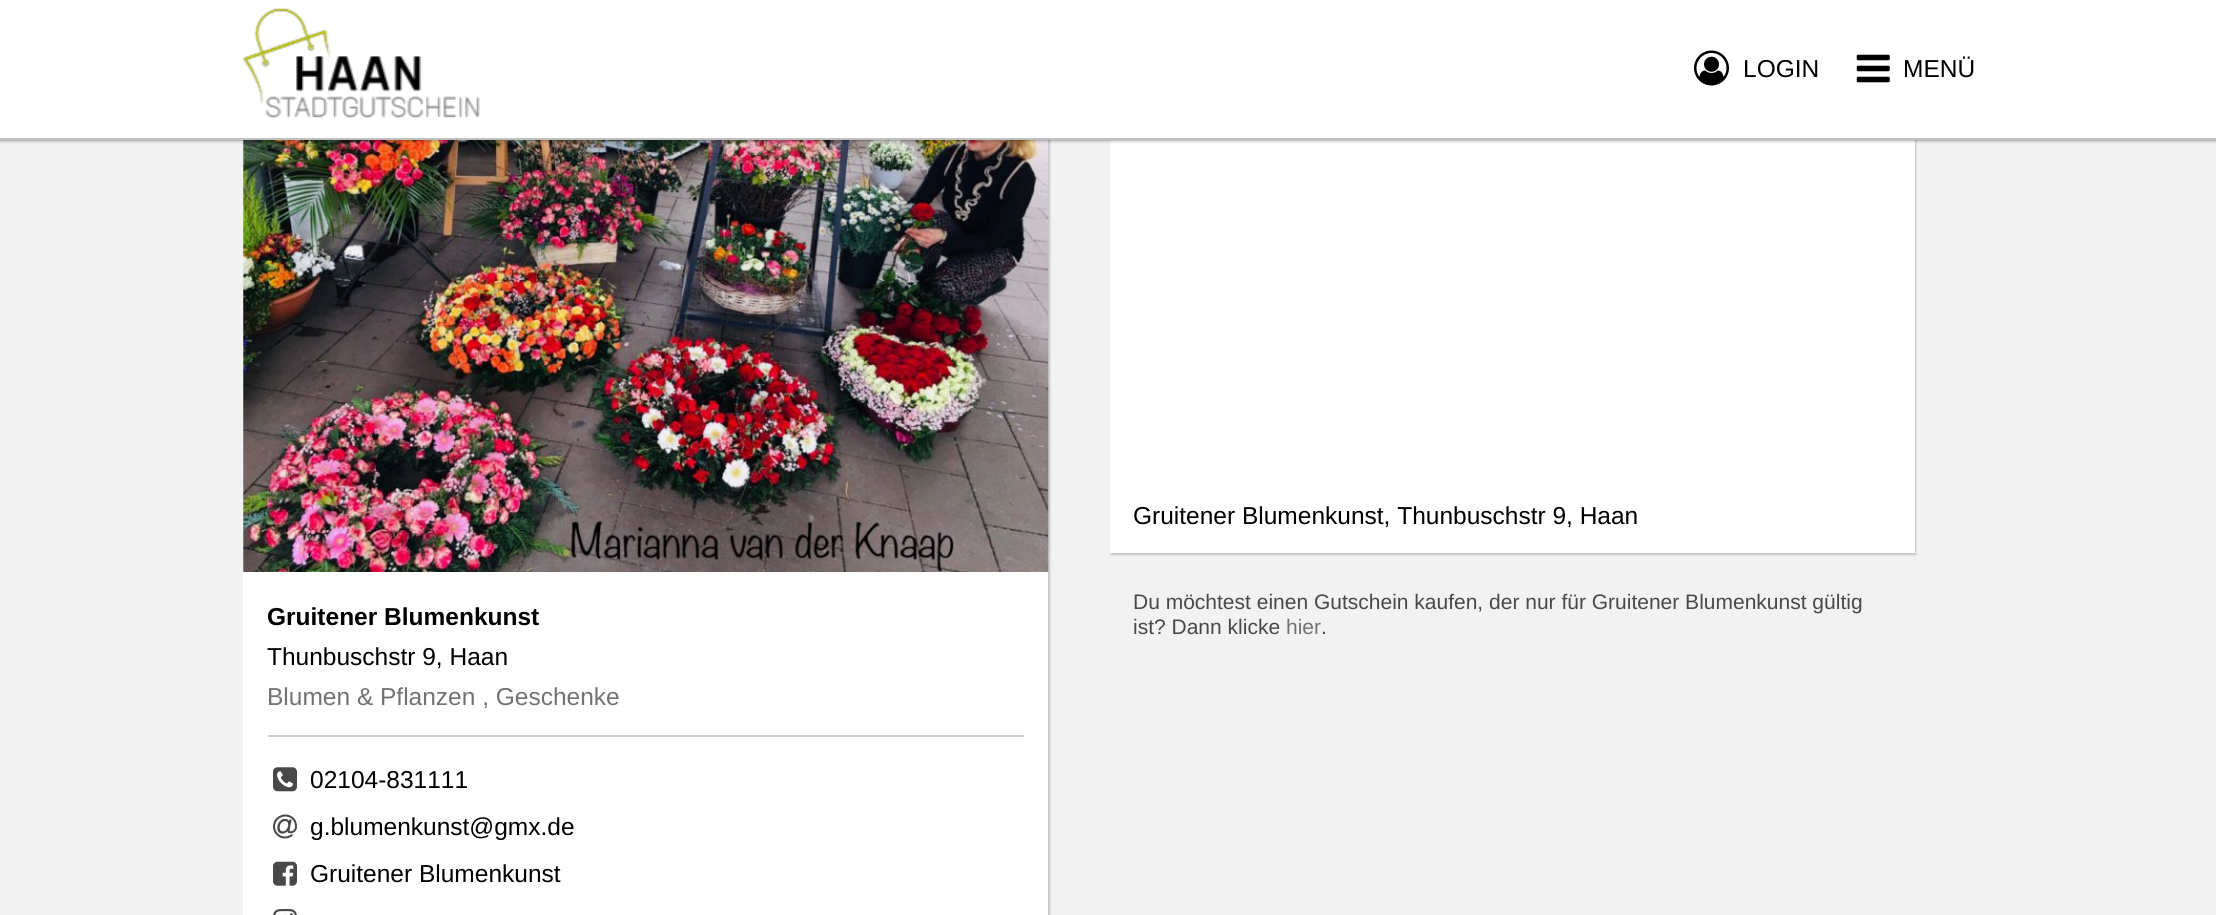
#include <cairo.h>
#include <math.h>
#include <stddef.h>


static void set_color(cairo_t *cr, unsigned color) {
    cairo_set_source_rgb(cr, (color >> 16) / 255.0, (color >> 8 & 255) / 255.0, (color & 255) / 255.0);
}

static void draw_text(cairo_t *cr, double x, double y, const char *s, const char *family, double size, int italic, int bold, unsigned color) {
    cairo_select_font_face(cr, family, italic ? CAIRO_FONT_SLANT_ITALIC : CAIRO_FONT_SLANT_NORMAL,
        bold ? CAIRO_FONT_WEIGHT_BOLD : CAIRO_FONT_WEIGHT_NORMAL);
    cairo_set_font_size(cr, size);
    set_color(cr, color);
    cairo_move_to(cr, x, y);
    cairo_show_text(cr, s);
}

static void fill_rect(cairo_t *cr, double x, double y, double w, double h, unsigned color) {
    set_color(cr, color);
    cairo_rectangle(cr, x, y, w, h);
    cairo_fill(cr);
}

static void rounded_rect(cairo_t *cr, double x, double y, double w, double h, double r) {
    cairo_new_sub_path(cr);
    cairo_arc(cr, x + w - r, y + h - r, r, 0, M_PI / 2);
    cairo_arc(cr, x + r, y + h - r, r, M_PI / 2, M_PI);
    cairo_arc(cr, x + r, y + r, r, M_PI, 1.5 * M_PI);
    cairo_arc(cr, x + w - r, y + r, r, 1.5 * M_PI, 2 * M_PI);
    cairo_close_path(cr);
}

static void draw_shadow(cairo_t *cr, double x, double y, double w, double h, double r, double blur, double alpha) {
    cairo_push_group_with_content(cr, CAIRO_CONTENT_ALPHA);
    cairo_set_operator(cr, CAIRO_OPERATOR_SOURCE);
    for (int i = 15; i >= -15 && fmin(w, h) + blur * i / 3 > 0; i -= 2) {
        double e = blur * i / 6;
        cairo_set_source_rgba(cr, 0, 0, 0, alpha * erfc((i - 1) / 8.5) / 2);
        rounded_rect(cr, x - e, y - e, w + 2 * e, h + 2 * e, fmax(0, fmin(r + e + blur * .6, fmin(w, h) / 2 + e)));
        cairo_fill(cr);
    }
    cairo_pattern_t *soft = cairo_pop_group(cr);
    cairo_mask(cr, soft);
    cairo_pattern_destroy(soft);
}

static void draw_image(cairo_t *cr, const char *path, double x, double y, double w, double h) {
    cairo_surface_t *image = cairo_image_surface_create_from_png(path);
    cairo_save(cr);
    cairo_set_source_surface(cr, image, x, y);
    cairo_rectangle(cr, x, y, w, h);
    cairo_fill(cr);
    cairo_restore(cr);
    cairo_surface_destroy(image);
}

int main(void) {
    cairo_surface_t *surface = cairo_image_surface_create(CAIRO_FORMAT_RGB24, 2216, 915);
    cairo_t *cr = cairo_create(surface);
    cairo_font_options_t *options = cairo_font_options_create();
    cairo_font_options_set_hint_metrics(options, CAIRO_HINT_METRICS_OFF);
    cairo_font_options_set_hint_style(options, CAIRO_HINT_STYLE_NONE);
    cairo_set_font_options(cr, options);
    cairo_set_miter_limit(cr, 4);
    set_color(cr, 0xF2F2F2);
    cairo_paint(cr);
    set_color(cr, 0x000000);
    draw_shadow(cr, 1111, 37, 805, 518, 0, 1, 0.2);
    fill_rect(cr, 1110, 140, 805, 413, 0xFFFFFF);
    set_color(cr, 0x000000);
    draw_shadow(cr, 245, 37, 805, 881, 0, 1, 0.2);
    fill_rect(cr, 243, 140, 805, 775, 0xFFFFFF);
    draw_image(cr, "assets/img4.png", 243, 140, 806, 432);
    set_color(cr, 0x000000);
    draw_shadow(cr, 0, 0, 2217, 140, 0, 2, 0.55);
    fill_rect(cr, 0, 0, 2216, 138, 0xFFFFFF);
    fill_rect(cr, 0, 138, 2216, 2, 0xBFBFBF);
    draw_image(cr, "assets/img1.png", 242, 8, 238, 110);
    draw_image(cr, "assets/img2.png", 1694, 50, 35, 36);
    draw_text(cr, 1743, 77, "LOGIN", "Liberation Sans", 24.5, 0, 0, 0x000000);
    draw_image(cr, "assets/img3.png", 1856, 54, 34, 29);
    draw_text(cr, 1903, 77, "MENÜ", "Liberation Sans", 24.5, 0, 0, 0x000000);
    draw_text(cr, 1133, 524, "Gruitener Blumenkunst, Thunbuschstr 9, Haan", "Liberation Sans", 24.5, 0, 0, 0x000000);
    draw_text(cr, 1133, 609, "Du möchtest einen Gutschein kaufen, der nur für Gruitener Blumenkunst gültig", "Liberation Sans", 21, 0, 0, 0x474847);
    draw_text(cr, 1133, 634, "ist? Dann klicke", "Liberation Sans", 21, 0, 0, 0x474847);
    draw_text(cr, 1286, 634, "hier", "Liberation Sans", 21, 0, 0, 0x727272);
    draw_text(cr, 1321, 634, ".", "Liberation Sans", 21, 0, 0, 0x474847);
    draw_text(cr, 267, 625, "Gruitener Blumenkunst", "Liberation Sans", 24.5, 0, 1, 0x000000);
    draw_text(cr, 267, 665, "Thunbuschstr 9, Haan", "Liberation Sans", 24.5, 0, 0, 0x000000);
    draw_text(cr, 267, 705, "Blumen & Pflanzen , Geschenke", "Liberation Sans", 24.5, 0, 0, 0x727272);
    fill_rect(cr, 268, 735, 756, 2, 0xCECECE);
    draw_image(cr, "assets/img5.png", 273, 767, 24, 25);
    draw_text(cr, 310, 788, "02104-831111", "Liberation Sans", 24.5, 0, 0, 0x000000);
    draw_image(cr, "assets/img6.png", 273, 814, 24, 25);
    draw_text(cr, 310, 835, "g.blumenkunst@gmx.de", "Liberation Sans", 24.5, 0, 0, 0x000000);
    draw_image(cr, "assets/img7.png", 273, 861, 24, 25);
    draw_text(cr, 310, 882, "Gruitener Blumenkunst", "Liberation Sans", 24.5, 0, 0, 0x000000);
    draw_image(cr, "assets/img8.png", 273, 909, 24, 6);
    cairo_surface_write_to_png(surface, "output.png");
    cairo_font_options_destroy(options);
    cairo_destroy(cr);
    cairo_surface_destroy(surface);
    return 0;
}
